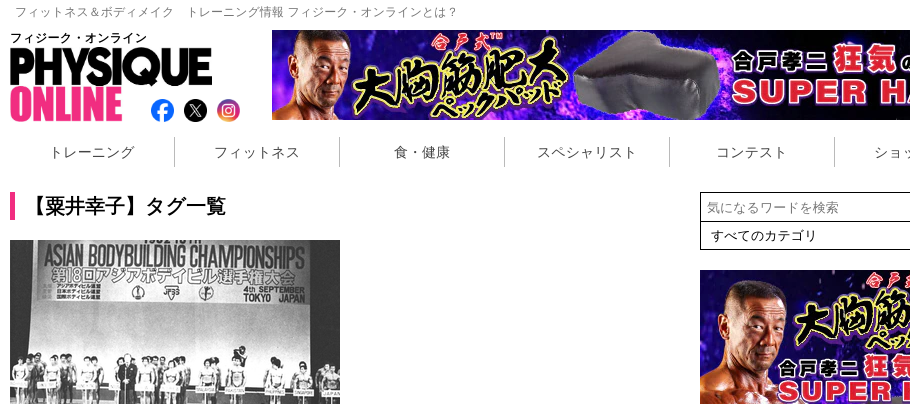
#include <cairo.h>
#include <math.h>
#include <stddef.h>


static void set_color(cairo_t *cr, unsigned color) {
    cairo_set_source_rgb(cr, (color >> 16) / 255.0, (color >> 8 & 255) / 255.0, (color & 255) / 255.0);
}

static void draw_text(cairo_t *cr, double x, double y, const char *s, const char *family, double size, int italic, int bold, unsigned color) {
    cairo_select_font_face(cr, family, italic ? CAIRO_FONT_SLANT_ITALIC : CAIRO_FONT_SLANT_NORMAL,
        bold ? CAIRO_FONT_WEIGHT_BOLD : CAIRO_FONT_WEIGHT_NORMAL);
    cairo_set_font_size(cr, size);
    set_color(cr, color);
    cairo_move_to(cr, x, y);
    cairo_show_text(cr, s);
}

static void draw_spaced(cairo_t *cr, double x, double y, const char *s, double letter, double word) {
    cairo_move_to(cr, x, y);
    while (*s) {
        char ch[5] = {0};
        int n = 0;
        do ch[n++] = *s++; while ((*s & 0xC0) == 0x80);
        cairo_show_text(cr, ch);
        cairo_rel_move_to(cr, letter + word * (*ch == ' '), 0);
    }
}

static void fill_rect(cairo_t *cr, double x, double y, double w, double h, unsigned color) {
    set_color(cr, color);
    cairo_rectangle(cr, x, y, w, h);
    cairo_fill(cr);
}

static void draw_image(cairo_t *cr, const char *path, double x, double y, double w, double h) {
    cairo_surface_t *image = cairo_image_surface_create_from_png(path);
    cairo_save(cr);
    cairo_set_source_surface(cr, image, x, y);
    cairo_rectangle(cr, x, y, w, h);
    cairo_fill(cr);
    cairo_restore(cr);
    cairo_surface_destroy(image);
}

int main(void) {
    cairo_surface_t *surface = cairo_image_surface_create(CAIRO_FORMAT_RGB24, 910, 404);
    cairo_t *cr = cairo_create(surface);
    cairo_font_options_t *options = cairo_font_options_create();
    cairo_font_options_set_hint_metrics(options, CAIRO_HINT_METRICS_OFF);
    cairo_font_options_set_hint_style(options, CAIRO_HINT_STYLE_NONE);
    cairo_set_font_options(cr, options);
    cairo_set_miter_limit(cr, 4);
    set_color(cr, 0xFFFFFF);
    cairo_paint(cr);
    draw_text(cr, 15, 16, "フィットネス＆ボディメイク　トレーニング情報 フィジーク・オンラインとは？", "WenQuanYi Zen Hei Medium", 12, 0, 0, 0x757575);
    cairo_select_font_face(cr, "WenQuanYi Zen Hei", CAIRO_FONT_SLANT_NORMAL, CAIRO_FONT_WEIGHT_BOLD);
    set_color(cr, 0x000000);
    draw_spaced(cr, 10, 42, "フィジーク・オンライン", 0.25, 0);
    draw_image(cr, "assets/img1.png", 10, 47, 202, 75);
    draw_image(cr, "assets/img2.png", 151, 99, 23, 23);
    draw_image(cr, "assets/img3.png", 184, 99, 23, 23);
    draw_image(cr, "assets/img4.png", 217, 99, 23, 23);
    draw_image(cr, "assets/img5.png", 272, 30, 638, 90);
    fill_rect(cr, 174, 137, 1, 30, 0xBABABA);
    draw_text(cr, 49, 157, "トレーニング", "WenQuanYi Zen Hei Medium", 14, 0, 0, 0x444444);
    fill_rect(cr, 339, 137, 1, 30, 0xBABABA);
    draw_text(cr, 214, 157, "フィットネス", "WenQuanYi Zen Hei Medium", 14, 0, 0, 0x444444);
    fill_rect(cr, 504, 137, 1, 30, 0xBABABA);
    draw_text(cr, 394, 157, "食・健康", "WenQuanYi Zen Hei Medium", 14, 0, 0, 0x444444);
    fill_rect(cr, 669, 137, 1, 30, 0xBABABA);
    draw_text(cr, 537, 157, "スペシャリスト", "WenQuanYi Zen Hei Medium", 14, 0, 0, 0x444444);
    fill_rect(cr, 834, 137, 1, 30, 0xBABABA);
    draw_text(cr, 716, 157, "コンテスト", "WenQuanYi Zen Hei Medium", 14, 0, 0, 0x444444);
    draw_text(cr, 874, 157, "ショッ", "WenQuanYi Zen Hei Medium", 14, 0, 0, 0x444444);
    fill_rect(cr, 10, 192, 5, 28, 0xF12D80);
    draw_text(cr, 25, 213, "【粟井幸子】タグ一覧", "WenQuanYi Zen Hei", 20, 0, 1, 0x000000);
    draw_image(cr, "assets/img6.png", 10, 240, 330, 164);
    cairo_rectangle(cr, 700.5, 192.5, 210, 29);
    cairo_set_line_width(cr, 1);
    cairo_stroke(cr);
    draw_text(cr, 707, 212, "気になるワードを検索", "WenQuanYi Zen Hei Medium", 13, 0, 0, 0x757575);
    fill_rect(cr, 700, 249, 210, 1, 0x000000);
    fill_rect(cr, 700, 222, 1, 28, 0x000000);
    draw_text(cr, 711, 240, "すべてのカテゴリ", "WenQuanYi Zen Hei Medium", 13, 0, 0, 0x000000);
    draw_image(cr, "assets/img7.png", 700, 270, 210, 134);
    cairo_surface_write_to_png(surface, "output.png");
    cairo_font_options_destroy(options);
    cairo_destroy(cr);
    cairo_surface_destroy(surface);
    return 0;
}
